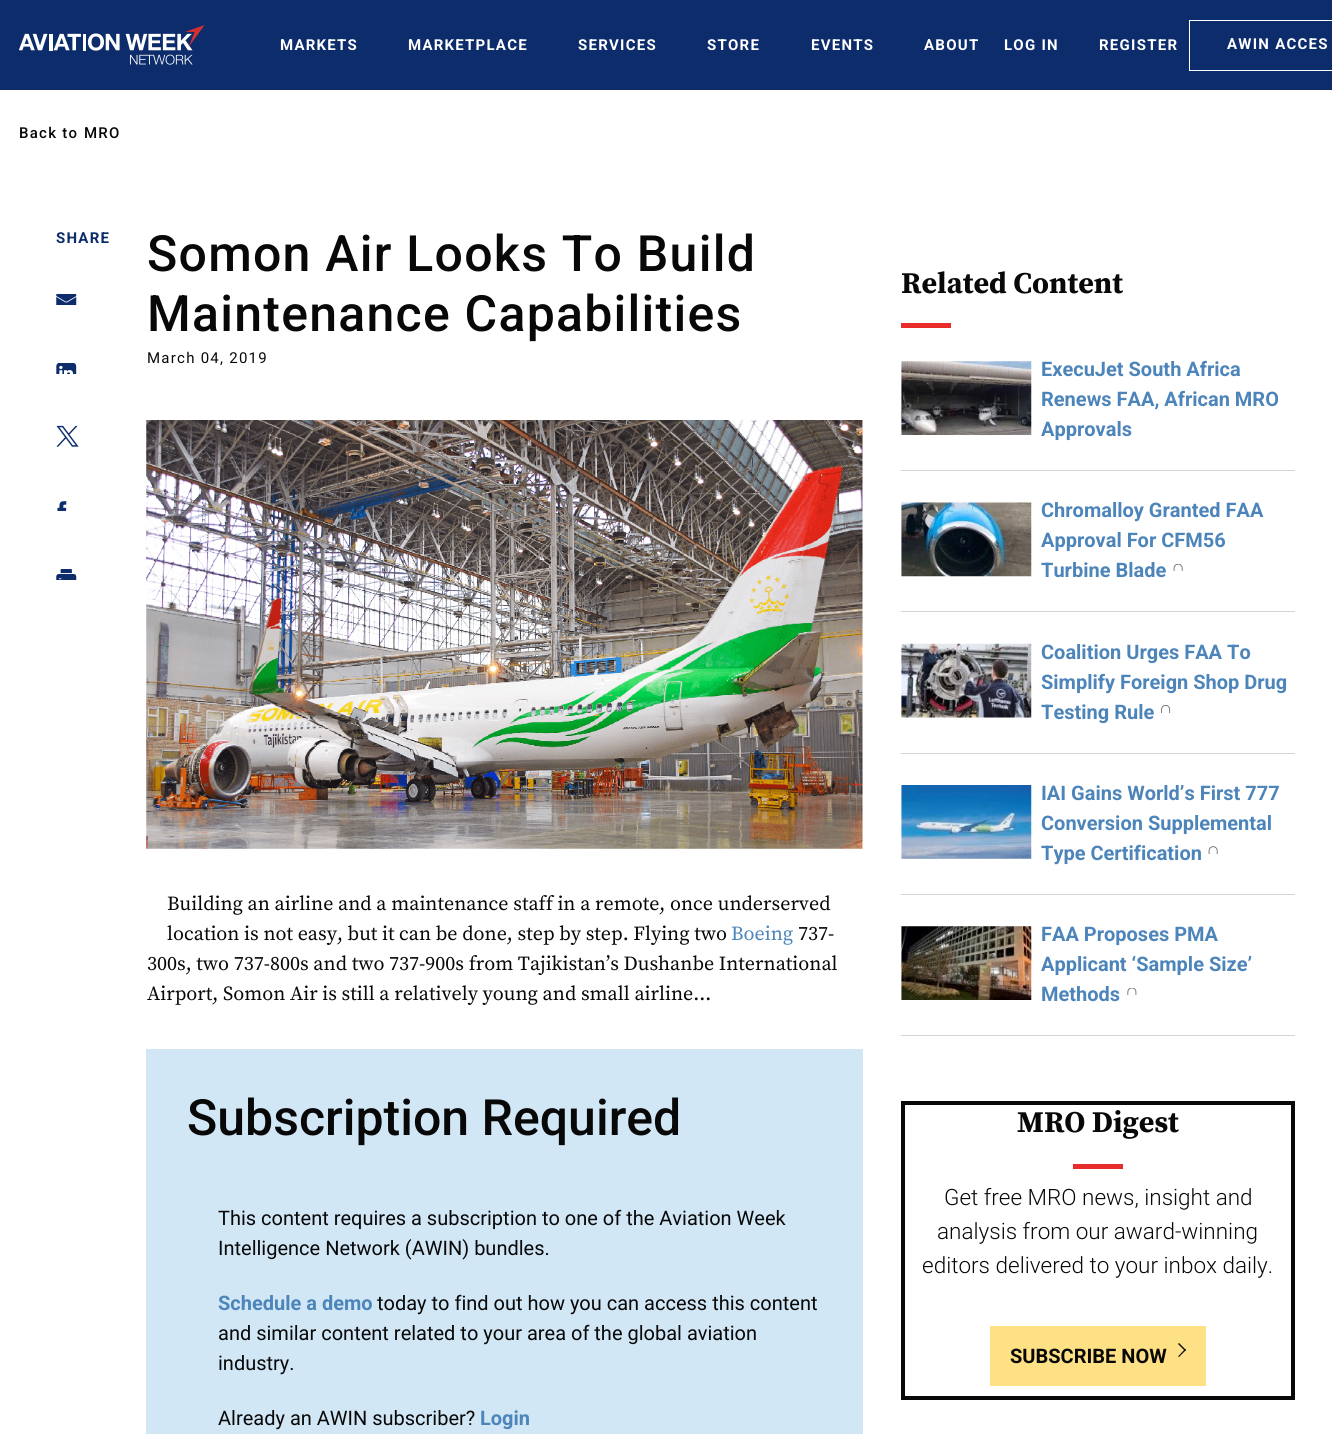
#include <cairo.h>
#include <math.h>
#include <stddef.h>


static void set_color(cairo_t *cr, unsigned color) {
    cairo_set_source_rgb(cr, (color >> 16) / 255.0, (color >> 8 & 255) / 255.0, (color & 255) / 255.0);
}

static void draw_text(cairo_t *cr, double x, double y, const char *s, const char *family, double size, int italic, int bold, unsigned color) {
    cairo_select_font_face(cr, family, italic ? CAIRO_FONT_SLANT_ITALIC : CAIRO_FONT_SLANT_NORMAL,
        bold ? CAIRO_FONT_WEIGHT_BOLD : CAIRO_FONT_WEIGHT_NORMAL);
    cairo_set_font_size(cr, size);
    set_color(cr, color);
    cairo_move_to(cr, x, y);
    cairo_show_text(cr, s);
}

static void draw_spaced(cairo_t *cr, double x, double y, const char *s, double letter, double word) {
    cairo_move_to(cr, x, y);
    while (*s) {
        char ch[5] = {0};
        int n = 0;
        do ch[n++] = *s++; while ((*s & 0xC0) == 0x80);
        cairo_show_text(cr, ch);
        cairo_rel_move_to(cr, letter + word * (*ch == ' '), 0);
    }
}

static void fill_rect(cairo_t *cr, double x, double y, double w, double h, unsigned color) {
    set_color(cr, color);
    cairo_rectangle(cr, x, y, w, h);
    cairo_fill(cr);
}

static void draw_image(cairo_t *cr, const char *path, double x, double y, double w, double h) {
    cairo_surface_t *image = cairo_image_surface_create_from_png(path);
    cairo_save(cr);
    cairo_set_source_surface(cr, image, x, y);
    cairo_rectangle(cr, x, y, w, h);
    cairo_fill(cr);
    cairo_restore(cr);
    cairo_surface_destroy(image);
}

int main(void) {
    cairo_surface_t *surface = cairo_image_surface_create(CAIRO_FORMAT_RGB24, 1332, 1434);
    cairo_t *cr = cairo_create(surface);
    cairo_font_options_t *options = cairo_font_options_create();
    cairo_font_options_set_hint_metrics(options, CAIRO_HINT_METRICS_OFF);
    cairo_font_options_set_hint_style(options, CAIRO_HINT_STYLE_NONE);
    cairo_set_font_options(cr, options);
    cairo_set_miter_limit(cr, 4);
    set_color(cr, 0xFFFFFF);
    cairo_paint(cr);
    fill_rect(cr, 0, 0, 1332, 90, 0x0D2C6B);
    draw_image(cr, "assets/img1.png", 19, 25, 186, 40);
    cairo_select_font_face(cr, "Roboto", CAIRO_FONT_SLANT_NORMAL, CAIRO_FONT_WEIGHT_BOLD);
    cairo_set_font_size(cr, 15);
    set_color(cr, 0xFFFFFF);
    draw_spaced(cr, 280, 50, "MARKETS", 1.25, 0);
    draw_spaced(cr, 408, 50, "MARKETPLACE", 1.25, 0);
    draw_spaced(cr, 578, 50, "SERVICES", 1.25, 0);
    draw_spaced(cr, 707, 50, "STORE", 1.25, 0);
    draw_spaced(cr, 811, 50, "EVENTS", 1.25, 0);
    draw_spaced(cr, 924, 50, "ABOUT", 1.25, 0);
    draw_spaced(cr, 1004, 50, "LOG IN", 1.25, 0);
    draw_spaced(cr, 1099, 50, "REGISTER", 1.25, 0);
    cairo_rectangle(cr, 1189.5, 20.5, 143, 50);
    cairo_set_line_width(cr, 1);
    cairo_stroke(cr);
    draw_spaced(cr, 1227, 49, "AWIN ACCES", 1.25, 0);
    cairo_select_font_face(cr, "Roboto Medium", CAIRO_FONT_SLANT_NORMAL, CAIRO_FONT_WEIGHT_NORMAL);
    set_color(cr, 0x080808);
    draw_spaced(cr, 19, 138, "Back to", 1.25, 0);
    draw_spaced(cr, 84, 138, "MRO", 1.25, 0);
    cairo_select_font_face(cr, "Roboto", CAIRO_FONT_SLANT_NORMAL, CAIRO_FONT_WEIGHT_BOLD);
    set_color(cr, 0x0D2C6B);
    draw_spaced(cr, 56, 243, "SHARE", 1.25, 0);
    draw_image(cr, "assets/img2.png", 56, 294, 21, 11);
    draw_image(cr, "assets/img3.png", 56, 363, 21, 11);
    draw_image(cr, "assets/img4.png", 56, 425, 23, 22);
    draw_image(cr, "assets/img5.png", 57, 501, 10, 10);
    draw_image(cr, "assets/img6.png", 56, 569, 21, 11);
    cairo_select_font_face(cr, "Roboto Medium", CAIRO_FONT_SLANT_NORMAL, CAIRO_FONT_WEIGHT_NORMAL);
    cairo_set_font_size(cr, 50);
    set_color(cr, 0x080808);
    draw_spaced(cr, 147, 271, "Somon Air Looks To Build", 1.25, 0);
    draw_spaced(cr, 147, 331, "Maintenance Capabilities", 1.25, 0);
    cairo_select_font_face(cr, "Roboto", CAIRO_FONT_SLANT_NORMAL, CAIRO_FONT_WEIGHT_NORMAL);
    cairo_set_font_size(cr, 15);
    draw_spaced(cr, 147, 363, "March 04, 2019", 1.25, 0);
    draw_image(cr, "assets/img7.png", 146, 420, 717, 429);
    draw_text(cr, 167, 910, "Building an airline and a maintenance staff in a remote, once underserved", "Source Serif Pro", 20, 0, 0, 0x080808);
    draw_text(cr, 167, 940, "location is not easy, but it can be done, step by step. Flying two", "Source Serif Pro", 20, 0, 0, 0x080808);
    draw_text(cr, 731, 940, "Boeing", "Source Serif Pro", 20, 0, 0, 0x4D85BA);
    draw_text(cr, 798, 940, "737-", "Source Serif Pro", 20, 0, 0, 0x080808);
    draw_text(cr, 147, 970, "300s, two 737-800s and two 737-900s from Tajikistan’s Dushanbe International", "Source Serif Pro", 20, 0, 0, 0x080808);
    draw_text(cr, 147, 1000, "Airport, Somon Air is still a relatively young and small airline...", "Source Serif Pro", 20, 0, 0, 0x080808);
    fill_rect(cr, 146, 1049, 717, 385, 0xD2E7F5);
    draw_text(cr, 187, 1135, "Subscription Required", "Roboto Medium", 50, 0, 0, 0x080808);
    draw_text(cr, 218, 1225, "This content requires a subscription to one of the Aviation Week", "Roboto", 20, 0, 0, 0x080808);
    draw_text(cr, 218, 1255, "Intelligence Network (AWIN) bundles.", "Roboto", 20, 0, 0, 0x080808);
    draw_text(cr, 218, 1310, "Schedule a demo", "Roboto", 20, 0, 1, 0x4D85BA);
    draw_text(cr, 377, 1310, "today to find out how you can access this content", "Roboto", 20, 0, 0, 0x080808);
    draw_text(cr, 218, 1340, "and similar content related to your area of the global aviation", "Roboto", 20, 0, 0, 0x080808);
    draw_text(cr, 218, 1370, "industry.", "Roboto", 20, 0, 0, 0x080808);
    draw_text(cr, 218, 1425, "Already an AWIN subscriber?", "Roboto", 20, 0, 0, 0x080808);
    draw_text(cr, 480, 1425, "Login", "Roboto", 20, 0, 1, 0x4D85BA);
    draw_text(cr, 901, 293, "Related Content", "Source Serif Pro", 30, 0, 1, 0x080808);
    fill_rect(cr, 901, 323, 50, 5, 0xE72C2A);
    fill_rect(cr, 901, 470, 394, 1, 0xD1D3D4);
    draw_image(cr, "assets/img8.png", 901, 361, 131, 74);
    draw_text(cr, 1041, 376, "ExecuJet South Africa", "Roboto", 20, 0, 1, 0x4D85BA);
    draw_text(cr, 1041, 406, "Renews FAA, African MRO", "Roboto", 20, 0, 1, 0x4D85BA);
    draw_text(cr, 1041, 436, "Approvals", "Roboto", 20, 0, 1, 0x4D85BA);
    fill_rect(cr, 901, 611, 394, 1, 0xD1D3D4);
    draw_image(cr, "assets/img9.png", 901, 502, 131, 75);
    draw_text(cr, 1041, 517, "Chromalloy Granted FAA", "Roboto", 20, 0, 1, 0x4D85BA);
    draw_text(cr, 1041, 547, "Approval For CFM56", "Roboto", 20, 0, 1, 0x4D85BA);
    draw_text(cr, 1041, 577, "Turbine Blade", "Roboto", 20, 0, 1, 0x4D85BA);
    draw_image(cr, "assets/img10.png", 1173, 564, 10, 7);
    fill_rect(cr, 901, 753, 394, 1, 0xD1D3D4);
    draw_image(cr, "assets/img11.png", 901, 643, 131, 75);
    draw_text(cr, 1041, 659, "Coalition Urges FAA To", "Roboto", 20, 0, 1, 0x4D85BA);
    draw_text(cr, 1041, 689, "Simplify Foreign Shop Drug", "Roboto", 20, 0, 1, 0x4D85BA);
    draw_text(cr, 1041, 719, "Testing Rule", "Roboto", 20, 0, 1, 0x4D85BA);
    draw_image(cr, "assets/img12.png", 1161, 705, 10, 8);
    fill_rect(cr, 901, 894, 394, 1, 0xD1D3D4);
    draw_image(cr, "assets/img13.png", 901, 785, 131, 74);
    draw_text(cr, 1041, 800, "IAI Gains World’s First 777", "Roboto", 20, 0, 1, 0x4D85BA);
    draw_text(cr, 1041, 830, "Conversion Supplemental", "Roboto", 20, 0, 1, 0x4D85BA);
    draw_text(cr, 1041, 860, "Type Certification", "Roboto", 20, 0, 1, 0x4D85BA);
    draw_image(cr, "assets/img14.png", 1208, 846, 10, 8);
    fill_rect(cr, 901, 1035, 394, 1, 0xD1D3D4);
    draw_image(cr, "assets/img15.png", 901, 926, 131, 74);
    draw_text(cr, 1041, 941, "FAA Proposes PMA", "Roboto", 20, 0, 1, 0x4D85BA);
    draw_text(cr, 1041, 971, "Applicant ‘Sample Size’", "Roboto", 20, 0, 1, 0x4D85BA);
    draw_text(cr, 1041, 1001, "Methods", "Roboto", 20, 0, 1, 0x4D85BA);
    draw_image(cr, "assets/img16.png", 1127, 988, 10, 7);
    cairo_rectangle(cr, 903, 1103, 390, 295);
    set_color(cr, 0x080808);
    cairo_set_line_width(cr, 4);
    cairo_stroke(cr);
    draw_text(cr, 1017, 1132, "MRO Digest", "Source Serif Pro", 30, 0, 1, 0x080808);
    fill_rect(cr, 1073, 1164, 50, 5, 0xE72C2A);
    draw_text(cr, 944, 1205, "Get free MRO news, insight and", "Roboto Light", 22.5, 0, 0, 0x080808);
    draw_text(cr, 937, 1239, "analysis from our award-winning", "Roboto Light", 22.5, 0, 0, 0x080808);
    draw_text(cr, 922, 1273, "editors delivered to your inbox daily.", "Roboto Light", 22.5, 0, 0, 0x080808);
    fill_rect(cr, 990, 1326, 216, 60, 0xFFE185);
    draw_text(cr, 1010, 1363, "SUBSCRIBE NOW", "Roboto", 20, 0, 1, 0x080808);
    cairo_new_path(cr);
    cairo_move_to(cr, 1179, 1343);
    cairo_line_to(cr, 1186, 1350);
    cairo_line_to(cr, 1185, 1351);
    cairo_line_to(cr, 1178, 1344);
    cairo_close_path(cr);
    cairo_fill(cr);
    cairo_new_path(cr);
    cairo_move_to(cr, 1185, 1349);
    cairo_line_to(cr, 1186, 1350);
    cairo_line_to(cr, 1179, 1357);
    cairo_line_to(cr, 1178, 1356.5);
    cairo_close_path(cr);
    cairo_fill(cr);
    cairo_surface_write_to_png(surface, "output.png");
    cairo_font_options_destroy(options);
    cairo_destroy(cr);
    cairo_surface_destroy(surface);
    return 0;
}
